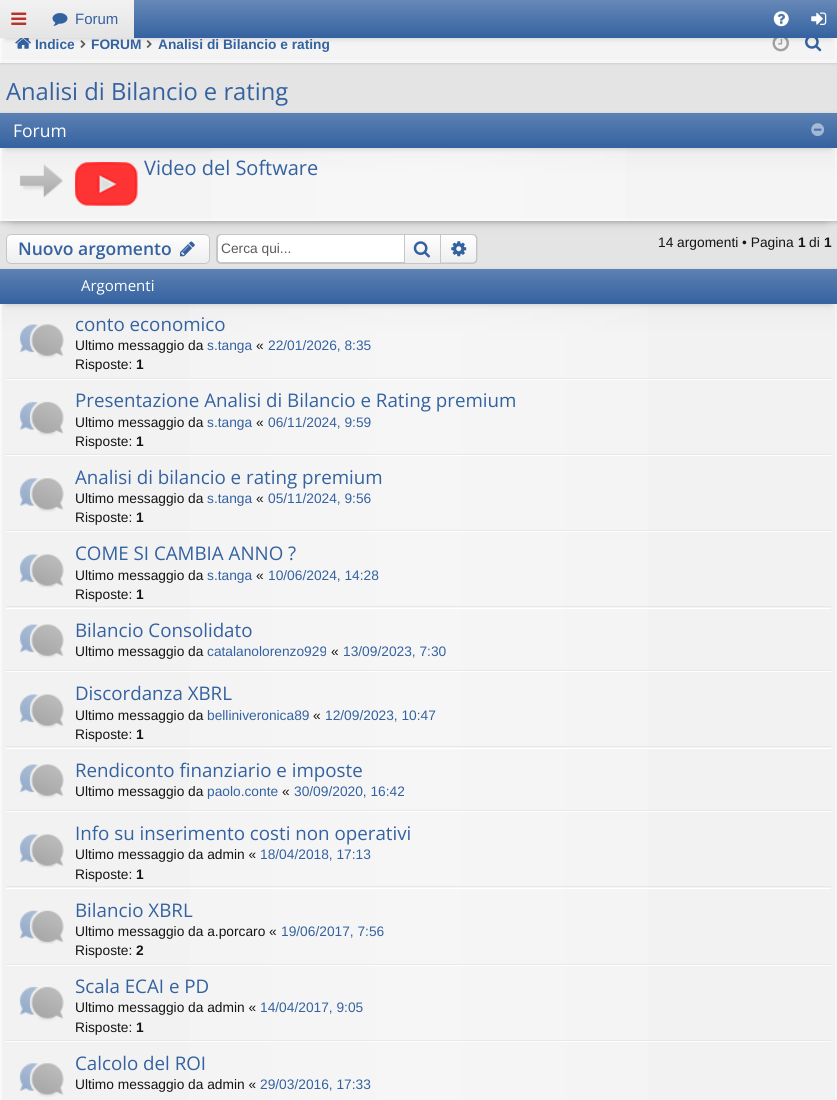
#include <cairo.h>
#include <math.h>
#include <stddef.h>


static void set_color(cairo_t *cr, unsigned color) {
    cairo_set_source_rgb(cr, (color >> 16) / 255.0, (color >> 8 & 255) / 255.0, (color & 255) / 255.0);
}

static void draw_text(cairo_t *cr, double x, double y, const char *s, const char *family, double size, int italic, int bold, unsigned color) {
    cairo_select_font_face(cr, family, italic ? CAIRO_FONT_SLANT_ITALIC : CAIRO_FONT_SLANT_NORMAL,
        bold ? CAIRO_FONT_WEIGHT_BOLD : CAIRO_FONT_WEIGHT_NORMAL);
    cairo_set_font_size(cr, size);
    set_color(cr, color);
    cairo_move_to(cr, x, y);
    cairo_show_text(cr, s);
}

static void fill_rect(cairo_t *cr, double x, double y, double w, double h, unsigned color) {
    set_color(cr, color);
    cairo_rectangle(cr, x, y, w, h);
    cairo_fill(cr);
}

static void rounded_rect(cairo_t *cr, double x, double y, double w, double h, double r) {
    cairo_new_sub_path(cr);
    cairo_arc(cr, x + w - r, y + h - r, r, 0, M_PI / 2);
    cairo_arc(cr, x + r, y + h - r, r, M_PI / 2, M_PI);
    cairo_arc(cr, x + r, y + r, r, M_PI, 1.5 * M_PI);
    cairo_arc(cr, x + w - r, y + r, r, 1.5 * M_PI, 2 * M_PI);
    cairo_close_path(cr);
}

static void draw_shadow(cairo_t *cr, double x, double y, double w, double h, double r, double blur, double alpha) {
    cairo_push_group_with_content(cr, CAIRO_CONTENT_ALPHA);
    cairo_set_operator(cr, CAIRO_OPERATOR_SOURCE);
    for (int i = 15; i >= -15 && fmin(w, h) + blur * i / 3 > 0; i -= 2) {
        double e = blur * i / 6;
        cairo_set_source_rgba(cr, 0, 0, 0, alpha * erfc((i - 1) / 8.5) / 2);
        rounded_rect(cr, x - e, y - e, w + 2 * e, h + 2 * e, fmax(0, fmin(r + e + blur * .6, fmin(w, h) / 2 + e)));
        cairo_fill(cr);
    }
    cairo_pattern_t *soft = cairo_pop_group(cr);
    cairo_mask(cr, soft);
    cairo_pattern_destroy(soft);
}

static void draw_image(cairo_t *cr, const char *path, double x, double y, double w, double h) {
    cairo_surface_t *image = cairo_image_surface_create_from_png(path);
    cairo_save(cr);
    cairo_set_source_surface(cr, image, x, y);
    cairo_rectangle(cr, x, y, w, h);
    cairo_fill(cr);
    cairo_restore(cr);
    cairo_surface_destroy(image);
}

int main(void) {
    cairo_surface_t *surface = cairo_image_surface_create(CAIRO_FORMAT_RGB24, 837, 1100);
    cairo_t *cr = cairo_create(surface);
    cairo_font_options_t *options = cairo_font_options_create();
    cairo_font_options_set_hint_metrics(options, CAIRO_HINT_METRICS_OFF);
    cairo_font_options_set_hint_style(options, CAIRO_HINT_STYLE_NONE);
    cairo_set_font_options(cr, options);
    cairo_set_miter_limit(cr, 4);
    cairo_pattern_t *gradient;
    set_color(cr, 0xE4E4E4);
    cairo_paint(cr);
    set_color(cr, 0x000000);
    draw_shadow(cr, 1, 26, 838, 38, 0, 1, 0.1);
    fill_rect(cr, 1, 38, 836, 24, 0xF4F4F4);
    cairo_rectangle(cr, 1.5, 26.5, 834, 34);
    set_color(cr, 0xFAFAFA);
    cairo_set_line_width(cr, 1);
    cairo_stroke(cr);
    cairo_rectangle(cr, 0.5, 25.5, 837, 37);
    set_color(cr, 0xF9F9F9);
    cairo_stroke(cr);
    draw_image(cr, "assets/img5.png", 15, 38, 16, 11);
    draw_image(cr, "assets/img6.png", 80, 40, 6, 8);
    draw_image(cr, "assets/img7.png", 146, 40, 6, 8);
    draw_image(cr, "assets/img8.png", 772, 38, 17, 14);
    draw_image(cr, "assets/img9.png", 805, 38, 17, 14);
    set_color(cr, 0x000000);
    draw_shadow(cr, 6, 13, 825, 25, 0, 3, 0.2);
    gradient = cairo_pattern_create_linear(419, 0, 419, 38);
    cairo_pattern_add_color_stop_rgba(gradient, 0, 0.404, 0.537, 0.722, 1);
    cairo_pattern_add_color_stop_rgba(gradient, 1, 0.204, 0.384, 0.627, 1);
    cairo_set_source(cr, gradient);
    cairo_pattern_destroy(gradient);
    cairo_rectangle(cr, 134, 0, 703, 38);
    cairo_fill(cr);
    gradient = cairo_pattern_create_linear(19, 0, 19, 38);
    cairo_pattern_add_color_stop_rgba(gradient, 0, 0.949, 0.949, 0.949, 1);
    cairo_pattern_add_color_stop_rgba(gradient, 1, 0.894, 0.894, 0.894, 1);
    cairo_set_source(cr, gradient);
    cairo_pattern_destroy(gradient);
    cairo_rectangle(cr, 0, 0, 38, 38);
    cairo_fill(cr);
    draw_image(cr, "assets/img1.png", 11, 12, 16, 13);
    gradient = cairo_pattern_create_linear(86, 0, 86, 38);
    cairo_pattern_add_color_stop_rgba(gradient, 0, 0.949, 0.949, 0.949, 1);
    cairo_pattern_add_color_stop_rgba(gradient, 1, 0.894, 0.894, 0.894, 1);
    cairo_set_source(cr, gradient);
    cairo_pattern_destroy(gradient);
    cairo_rectangle(cr, 38, 0, 96, 38);
    cairo_fill(cr);
    draw_image(cr, "assets/img2.png", 52, 13, 16, 13);
    draw_text(cr, 75, 24, "Forum", "Liberation Sans", 15, 0, 0, 0x3462A0);
    draw_image(cr, "assets/img3.png", 773, 11, 16, 16);
    draw_image(cr, "assets/img4.png", 811, 12, 16, 13);
    draw_text(cr, 35, 49, "Indice", "Liberation Sans", 13.75, 0, 1, 0x3462A0);
    draw_text(cr, 91, 49, "FORUM", "Liberation Sans", 13.75, 0, 1, 0x3462A0);
    draw_text(cr, 158, 49, "Analisi di Bilancio e rating", "Liberation Sans", 13.75, 0, 1, 0x3462A0);
    draw_text(cr, 6, 100, "Analisi di Bilancio e rating", "Open Sans", 23.75, 0, 0, 0x3462A0);
    set_color(cr, 0x000000);
    draw_shadow(cr, 13, 138, 812, 83, 0, 6, 0.2);
    draw_shadow(cr, 1, 114, 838, 109, 0, 2, 0.15);
    gradient = cairo_pattern_create_linear(419, 114, 419, 220);
    cairo_pattern_add_color_stop_rgba(gradient, 0, 0.925, 0.925, 0.925, 1);
    cairo_pattern_add_color_stop_rgba(gradient, 0.12, 0.918, 0.918, 0.918, 1);
    cairo_pattern_add_color_stop_rgba(gradient, 0.59, 0.957, 0.957, 0.957, 1);
    cairo_set_source(cr, gradient);
    cairo_pattern_destroy(gradient);
    cairo_rectangle(cr, 1, 148, 836, 72);
    cairo_fill(cr);
    gradient = cairo_pattern_create_linear(1.2, 167, 836, 167);
    cairo_pattern_add_color_stop_rgba(gradient, 0, 1, 1, 1, 0);
    cairo_pattern_add_color_stop_rgba(gradient, 0.5, 1, 1, 1, 0.3);
    cairo_pattern_add_color_stop_rgba(gradient, 1, 1, 1, 1, 0);
    cairo_set_source(cr, gradient);
    cairo_pattern_destroy(gradient);
    cairo_rectangle(cr, 211, 148, 415, 72);
    cairo_fill(cr);
    cairo_rectangle(cr, 1.5, 114.5, 834, 105);
    cairo_set_source_rgba(cr, 1, 1, 1, 0.5);
    cairo_stroke(cr);
    cairo_rectangle(cr, 0.5, 113.5, 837, 107);
    set_color(cr, 0xF9F9F9);
    cairo_stroke(cr);
    set_color(cr, 0x000000);
    draw_shadow(cr, 6, 125, 825, 23, 0, 3, 0.2);
    gradient = cairo_pattern_create_linear(419, 112, 419, 148);
    cairo_pattern_add_color_stop_rgba(gradient, 0, 0.365, 0.506, 0.702, 1);
    cairo_pattern_add_color_stop_rgba(gradient, 1, 0.204, 0.384, 0.627, 1);
    cairo_set_source(cr, gradient);
    cairo_pattern_destroy(gradient);
    cairo_rectangle(cr, 0, 113, 837, 35);
    cairo_fill(cr);
    draw_text(cr, 13, 137, "Forum", "Open Sans", 17.5, 0, 0, 0xFFFFFF);
    draw_image(cr, "assets/img10.png", 811, 123, 14, 13);
    draw_image(cr, "assets/img11.png", 19, 164, 44, 34);
    draw_image(cr, "assets/img12.png", 75, 162, 63, 44);
    draw_text(cr, 144, 175, "Video del Software", "Open Sans", 20, 0, 0, 0x3462A0);
    set_color(cr, 0x000000);
    draw_shadow(cr, 1, 270, 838, 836, 0, 2, 0.15);
    set_color(cr, 0xEEEEEE);
    rounded_rect(cr, 6, 234, 204, 30, 5);
    cairo_fill(cr);
    cairo_save(cr);
    rounded_rect(cr, 6, 234, 204, 30, 5);
    cairo_clip(cr);
    gradient = cairo_pattern_create_linear(108, 235, 108, 263);
    cairo_pattern_add_color_stop_rgba(gradient, 0, 1, 1, 1, 1);
    cairo_pattern_add_color_stop_rgba(gradient, 1, 1, 1, 1, 0);
    cairo_set_source(cr, gradient);
    cairo_pattern_destroy(gradient);
    cairo_rectangle(cr, 6, 235, 204, 27);
    cairo_fill(cr);
    cairo_restore(cr);
    rounded_rect(cr, 6.5, 234.5, 203, 29, 4.5);
    set_color(cr, 0xC6C6C6);
    cairo_stroke(cr);
    draw_text(cr, 18, 255, "Nuovo argomento", "Open Sans SemiBold", 17.5, 0, 0, 0x3462A0);
    draw_image(cr, "assets/img13.png", 180, 241, 15, 16);
    set_color(cr, 0xFFFFFF);
    cairo_new_path(cr);
    cairo_move_to(cr, 222, 235);
    cairo_line_to(cr, 404, 235);
    cairo_line_to(cr, 404, 263);
    cairo_line_to(cr, 222, 263);
    cairo_curve_to(cr, 220, 263, 218, 261, 218, 259);
    cairo_line_to(cr, 218, 239);
    cairo_curve_to(cr, 218, 237, 220, 235, 222, 235);
    cairo_close_path(cr);
    cairo_fill(cr);
    set_color(cr, 0xC6C6C6);
    cairo_set_fill_rule(cr, CAIRO_FILL_RULE_EVEN_ODD);
    cairo_new_path(cr);
    cairo_move_to(cr, 221, 234);
    cairo_line_to(cr, 404, 234);
    cairo_line_to(cr, 404, 264);
    cairo_line_to(cr, 221, 264);
    cairo_curve_to(cr, 218, 264, 216, 262, 216, 259);
    cairo_line_to(cr, 216, 239);
    cairo_curve_to(cr, 216, 236, 218, 234, 221, 234);
    cairo_close_path(cr);
    cairo_move_to(cr, 221, 235);
    cairo_line_to(cr, 404, 235);
    cairo_line_to(cr, 404, 262);
    cairo_line_to(cr, 221, 262);
    cairo_curve_to(cr, 219, 262, 218, 261, 218, 259);
    cairo_line_to(cr, 218, 239);
    cairo_curve_to(cr, 218, 237, 219, 235, 221, 235);
    cairo_close_path(cr);
    cairo_fill(cr);
    draw_text(cr, 221, 253, "Cerca qui...", "Liberation Sans", 13.75, 0, 0, 0x5B5B5B);
    gradient = cairo_pattern_create_linear(423, 235, 423, 263);
    cairo_pattern_add_color_stop_rgba(gradient, 0, 1, 1, 1, 1);
    cairo_pattern_add_color_stop_rgba(gradient, 1, 0.933, 0.933, 0.933, 1);
    cairo_set_source(cr, gradient);
    cairo_pattern_destroy(gradient);
    cairo_rectangle(cr, 405, 235, 35, 28);
    cairo_fill(cr);
    cairo_rectangle(cr, 404.5, 234.5, 36, 29);
    set_color(cr, 0xC6C6C6);
    cairo_stroke(cr);
    draw_image(cr, "assets/img14.png", 413, 241, 17, 17);
    set_color(cr, 0xEEEEEE);
    cairo_new_path(cr);
    cairo_move_to(cr, 441, 235);
    cairo_line_to(cr, 472, 235);
    cairo_curve_to(cr, 474, 235, 476, 237, 476, 239);
    cairo_line_to(cr, 476, 259);
    cairo_curve_to(cr, 476, 261, 474, 263, 472, 263);
    cairo_line_to(cr, 441, 263);
    cairo_close_path(cr);
    cairo_fill(cr);
    gradient = cairo_pattern_create_linear(459, 235, 459, 263);
    cairo_pattern_add_color_stop_rgba(gradient, 0, 1, 1, 1, 1);
    cairo_pattern_add_color_stop_rgba(gradient, 1, 1, 1, 1, 0);
    cairo_set_source(cr, gradient);
    cairo_pattern_destroy(gradient);
    cairo_new_path(cr);
    cairo_move_to(cr, 441, 235);
    cairo_line_to(cr, 472, 235);
    cairo_curve_to(cr, 474, 235, 476, 237, 476, 239);
    cairo_line_to(cr, 476, 259);
    cairo_curve_to(cr, 476, 261, 474, 263, 472, 263);
    cairo_line_to(cr, 441, 263);
    cairo_close_path(cr);
    cairo_fill(cr);
    set_color(cr, 0xC6C6C6);
    cairo_new_path(cr);
    cairo_move_to(cr, 441, 234);
    cairo_line_to(cr, 472.5, 234);
    cairo_curve_to(cr, 475.5, 234, 477.5, 236, 477.5, 239);
    cairo_line_to(cr, 477.5, 259);
    cairo_curve_to(cr, 477.5, 261.5, 475.5, 264, 472.5, 264);
    cairo_line_to(cr, 441, 264);
    cairo_close_path(cr);
    cairo_move_to(cr, 441, 235);
    cairo_line_to(cr, 472.5, 235);
    cairo_curve_to(cr, 474.5, 235, 476, 236.5, 476, 239);
    cairo_line_to(cr, 476, 259);
    cairo_curve_to(cr, 476, 261, 474.5, 262.5, 472.5, 262.5);
    cairo_line_to(cr, 441, 262.5);
    cairo_close_path(cr);
    cairo_fill(cr);
    draw_image(cr, "assets/img15.png", 451, 241, 16, 16);
    draw_text(cr, 658, 247, "14 argomenti • Pagina", "Liberation Sans", 13.75, 0, 0, 0x141414);
    draw_text(cr, 798, 247, "1", "Liberation Sans", 13.75, 0, 1, 0x141414);
    draw_text(cr, 809, 247, "di", "Liberation Sans", 13.75, 0, 0, 0x141414);
    draw_text(cr, 824, 247, "1", "Liberation Sans", 13.75, 0, 1, 0x141414);
    gradient = cairo_pattern_create_linear(419, 270, 419, 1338);
    cairo_pattern_add_color_stop_rgba(gradient, 0, 0.918, 0.918, 0.918, 1);
    cairo_pattern_add_color_stop_rgba(gradient, 0.01, 0.91, 0.91, 0.91, 1);
    cairo_pattern_add_color_stop_rgba(gradient, 0.06, 0.949, 0.949, 0.949, 1);
    cairo_set_source(cr, gradient);
    cairo_pattern_destroy(gradient);
    cairo_rectangle(cr, 1, 304, 836, 796);
    cairo_fill(cr);
    gradient = cairo_pattern_create_linear(1.2, 804, 836, 804);
    cairo_pattern_add_color_stop_rgba(gradient, 0, 1, 1, 1, 0);
    cairo_pattern_add_color_stop_rgba(gradient, 0.5, 1, 1, 1, 0.3);
    cairo_pattern_add_color_stop_rgba(gradient, 1, 1, 1, 1, 0);
    cairo_set_source(cr, gradient);
    cairo_pattern_destroy(gradient);
    cairo_rectangle(cr, 189, 304, 459, 796);
    cairo_fill(cr);
    cairo_rectangle(cr, 1.5, 270.5, 834, 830);
    cairo_set_source_rgba(cr, 1, 1, 1, 0.5);
    cairo_stroke(cr);
    cairo_rectangle(cr, 0.5, 269.5, 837, 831);
    set_color(cr, 0xF9F9F9);
    cairo_stroke(cr);
    set_color(cr, 0x000000);
    draw_shadow(cr, 6, 281, 825, 23, 0, 3, 0.2);
    gradient = cairo_pattern_create_linear(419, 269, 419, 304);
    cairo_pattern_add_color_stop_rgba(gradient, 0, 0.365, 0.506, 0.702, 1);
    cairo_pattern_add_color_stop_rgba(gradient, 1, 0.204, 0.384, 0.627, 1);
    cairo_set_source(cr, gradient);
    cairo_pattern_destroy(gradient);
    cairo_rectangle(cr, 0, 269, 837, 35);
    cairo_fill(cr);
    draw_text(cr, 81, 291, "Argomenti", "Open Sans", 15, 0, 0, 0xFFFFFF);
    fill_rect(cr, 6, 378, 825, 1, 0xE7E7E7);
    draw_image(cr, "assets/img16.png", 19, 324, 45, 34);
    draw_text(cr, 75, 331, "conto economico", "Open Sans", 18.75, 0, 0, 0x3462A0);
    draw_text(cr, 75, 350, "Ultimo messaggio da", "Liberation Sans", 13.75, 0, 0, 0x141414);
    draw_text(cr, 207, 350, "s.tanga", "Liberation Sans", 13.75, 0, 0, 0x3462A0);
    draw_text(cr, 256, 350, "«", "Liberation Sans", 13.75, 0, 0, 0x141414);
    draw_text(cr, 268, 350, "22/01/2026, 8:35", "Liberation Sans", 13.75, 0, 0, 0x3462A0);
    draw_text(cr, 75, 369, "Risposte:", "Liberation Sans", 13.75, 0, 0, 0x141414);
    draw_text(cr, 136, 369, "1", "Liberation Sans", 13.75, 0, 1, 0x141414);
    fill_rect(cr, 6, 379, 825, 1, 0xFFFFFF);
    fill_rect(cr, 6, 454, 825, 1, 0xE7E7E7);
    draw_image(cr, "assets/img17.png", 19, 401, 45, 35);
    draw_text(cr, 75, 407, "Presentazione Analisi di Bilancio e Rating premium", "Open Sans", 18.75, 0, 0, 0x3462A0);
    draw_text(cr, 75, 427, "Ultimo messaggio da", "Liberation Sans", 13.75, 0, 0, 0x141414);
    draw_text(cr, 207, 427, "s.tanga", "Liberation Sans", 13.75, 0, 0, 0x3462A0);
    draw_text(cr, 256, 427, "«", "Liberation Sans", 13.75, 0, 0, 0x141414);
    draw_text(cr, 268, 427, "06/11/2024, 9:59", "Liberation Sans", 13.75, 0, 0, 0x3462A0);
    draw_text(cr, 75, 446, "Risposte:", "Liberation Sans", 13.75, 0, 0, 0x141414);
    draw_text(cr, 136, 446, "1", "Liberation Sans", 13.75, 0, 1, 0x141414);
    fill_rect(cr, 6, 455, 825, 1, 0xFFFFFF);
    fill_rect(cr, 6, 530, 825, 1, 0xE7E7E7);
    draw_image(cr, "assets/img18.png", 19, 478, 45, 34);
    draw_text(cr, 75, 484, "Analisi di bilancio e rating premium", "Open Sans", 18.75, 0, 0, 0x3462A0);
    draw_text(cr, 75, 503, "Ultimo messaggio da", "Liberation Sans", 13.75, 0, 0, 0x141414);
    draw_text(cr, 207, 503, "s.tanga", "Liberation Sans", 13.75, 0, 0, 0x3462A0);
    draw_text(cr, 256, 503, "«", "Liberation Sans", 13.75, 0, 0, 0x141414);
    draw_text(cr, 268, 503, "05/11/2024, 9:56", "Liberation Sans", 13.75, 0, 0, 0x3462A0);
    draw_text(cr, 75, 522, "Risposte:", "Liberation Sans", 13.75, 0, 0, 0x141414);
    draw_text(cr, 136, 522, "1", "Liberation Sans", 13.75, 0, 1, 0x141414);
    fill_rect(cr, 6, 531, 825, 1, 0xFFFFFF);
    fill_rect(cr, 6, 606, 825, 1, 0xE7E7E7);
    draw_image(cr, "assets/img19.png", 19, 554, 45, 34);
    draw_text(cr, 75, 560, "COME SI CAMBIA ANNO ?", "Open Sans", 18.75, 0, 0, 0x3462A0);
    draw_text(cr, 75, 580, "Ultimo messaggio da", "Liberation Sans", 13.75, 0, 0, 0x141414);
    draw_text(cr, 207, 580, "s.tanga", "Liberation Sans", 13.75, 0, 0, 0x3462A0);
    draw_text(cr, 256, 580, "«", "Liberation Sans", 13.75, 0, 0, 0x141414);
    draw_text(cr, 268, 580, "10/06/2024, 14:28", "Liberation Sans", 13.75, 0, 0, 0x3462A0);
    draw_text(cr, 75, 599, "Risposte:", "Liberation Sans", 13.75, 0, 0, 0x141414);
    draw_text(cr, 136, 599, "1", "Liberation Sans", 13.75, 0, 1, 0x141414);
    fill_rect(cr, 6, 608, 825, 1, 0xFFFFFF);
    fill_rect(cr, 6, 670, 825, 1, 0xE7E7E7);
    draw_image(cr, "assets/img20.png", 19, 624, 45, 34);
    draw_text(cr, 75, 637, "Bilancio Consolidato", "Open Sans", 18.75, 0, 0, 0x3462A0);
    draw_text(cr, 75, 656, "Ultimo messaggio da", "Liberation Sans", 13.75, 0, 0, 0x141414);
    draw_text(cr, 207, 656, "catalanolorenzo929", "Liberation Sans", 13.75, 0, 0, 0x3462A0);
    draw_text(cr, 331, 656, "«", "Liberation Sans", 13.75, 0, 0, 0x141414);
    draw_text(cr, 343, 656, "13/09/2023, 7:30", "Liberation Sans", 13.75, 0, 0, 0x3462A0);
    fill_rect(cr, 6, 671, 825, 1, 0xFFFFFF);
    fill_rect(cr, 6, 746, 825, 1, 0xE7E7E7);
    draw_image(cr, "assets/img19.png", 19, 694, 45, 34);
    draw_text(cr, 75, 700, "Discordanza XBRL", "Open Sans", 18.75, 0, 0, 0x3462A0);
    draw_text(cr, 75, 720, "Ultimo messaggio da", "Liberation Sans", 13.75, 0, 0, 0x141414);
    draw_text(cr, 207, 720, "belliniveronica89", "Liberation Sans", 13.75, 0, 0, 0x3462A0);
    draw_text(cr, 313, 720, "«", "Liberation Sans", 13.75, 0, 0, 0x141414);
    draw_text(cr, 325, 720, "12/09/2023, 10:47", "Liberation Sans", 13.75, 0, 0, 0x3462A0);
    draw_text(cr, 75, 739, "Risposte:", "Liberation Sans", 13.75, 0, 0, 0x141414);
    draw_text(cr, 136, 739, "1", "Liberation Sans", 13.75, 0, 1, 0x141414);
    fill_rect(cr, 6, 748, 825, 1, 0xFFFFFF);
    fill_rect(cr, 6, 810, 825, 1, 0xE7E7E7);
    draw_image(cr, "assets/img19.png", 19, 764, 45, 34);
    draw_text(cr, 75, 777, "Rendiconto finanziario e imposte", "Open Sans", 18.75, 0, 0, 0x3462A0);
    draw_text(cr, 75, 796, "Ultimo messaggio da", "Liberation Sans", 13.75, 0, 0, 0x141414);
    draw_text(cr, 207, 796, "paolo.conte", "Liberation Sans", 13.75, 0, 0, 0x3462A0);
    draw_text(cr, 282, 796, "«", "Liberation Sans", 13.75, 0, 0, 0x141414);
    draw_text(cr, 294, 796, "30/09/2020, 16:42", "Liberation Sans", 13.75, 0, 0, 0x3462A0);
    fill_rect(cr, 6, 811, 825, 1, 0xFFFFFF);
    fill_rect(cr, 6, 886, 825, 1, 0xE7E7E7);
    draw_image(cr, "assets/img19.png", 19, 834, 45, 34);
    draw_text(cr, 75, 840, "Info su inserimento costi non operativi", "Open Sans", 18.75, 0, 0, 0x3462A0);
    draw_text(cr, 75, 859, "Ultimo messaggio da admin «", "Liberation Sans", 13.75, 0, 0, 0x141414);
    draw_text(cr, 260, 859, "18/04/2018, 17:13", "Liberation Sans", 13.75, 0, 0, 0x3462A0);
    draw_text(cr, 75, 879, "Risposte:", "Liberation Sans", 13.75, 0, 0, 0x141414);
    draw_text(cr, 136, 879, "1", "Liberation Sans", 13.75, 0, 1, 0x141414);
    fill_rect(cr, 6, 888, 825, 1, 0xFFFFFF);
    fill_rect(cr, 6, 964, 825, 1, 0xE7E7E7);
    draw_image(cr, "assets/img21.png", 19, 910, 45, 34);
    draw_text(cr, 75, 917, "Bilancio XBRL", "Open Sans", 18.75, 0, 0, 0x3462A0);
    draw_text(cr, 75, 936, "Ultimo messaggio da a.porcaro «", "Liberation Sans", 13.75, 0, 0, 0x141414);
    draw_text(cr, 281, 936, "19/06/2017, 7:56", "Liberation Sans", 13.75, 0, 0, 0x3462A0);
    draw_text(cr, 75, 955, "Risposte:", "Liberation Sans", 13.75, 0, 0, 0x141414);
    draw_text(cr, 136, 955, "2", "Liberation Sans", 13.75, 0, 1, 0x141414);
    fill_rect(cr, 6, 965, 825, 1, 0xFFFFFF);
    fill_rect(cr, 6, 1040, 825, 1, 0xE7E7E7);
    draw_image(cr, "assets/img17.png", 19, 986, 45, 35);
    draw_text(cr, 75, 993, "Scala ECAI e PD", "Open Sans", 18.75, 0, 0, 0x3462A0);
    draw_text(cr, 75, 1012, "Ultimo messaggio da admin «", "Liberation Sans", 13.75, 0, 0, 0x141414);
    draw_text(cr, 260, 1012, "14/04/2017, 9:05", "Liberation Sans", 13.75, 0, 0, 0x3462A0);
    draw_text(cr, 75, 1032, "Risposte:", "Liberation Sans", 13.75, 0, 0, 0x141414);
    draw_text(cr, 136, 1032, "1", "Liberation Sans", 13.75, 0, 1, 0x141414);
    fill_rect(cr, 6, 1041, 825, 1, 0xFFFFFF);
    draw_image(cr, "assets/img18.png", 19, 1063, 45, 34);
    draw_text(cr, 75, 1070, "Calcolo del ROI", "Open Sans", 18.75, 0, 0, 0x3462A0);
    draw_text(cr, 75, 1089, "Ultimo messaggio da admin «", "Liberation Sans", 13.75, 0, 0, 0x141414);
    draw_text(cr, 260, 1089, "29/03/2016, 17:33", "Liberation Sans", 13.75, 0, 0, 0x3462A0);
    cairo_surface_write_to_png(surface, "output.png");
    cairo_font_options_destroy(options);
    cairo_destroy(cr);
    cairo_surface_destroy(surface);
    return 0;
}
